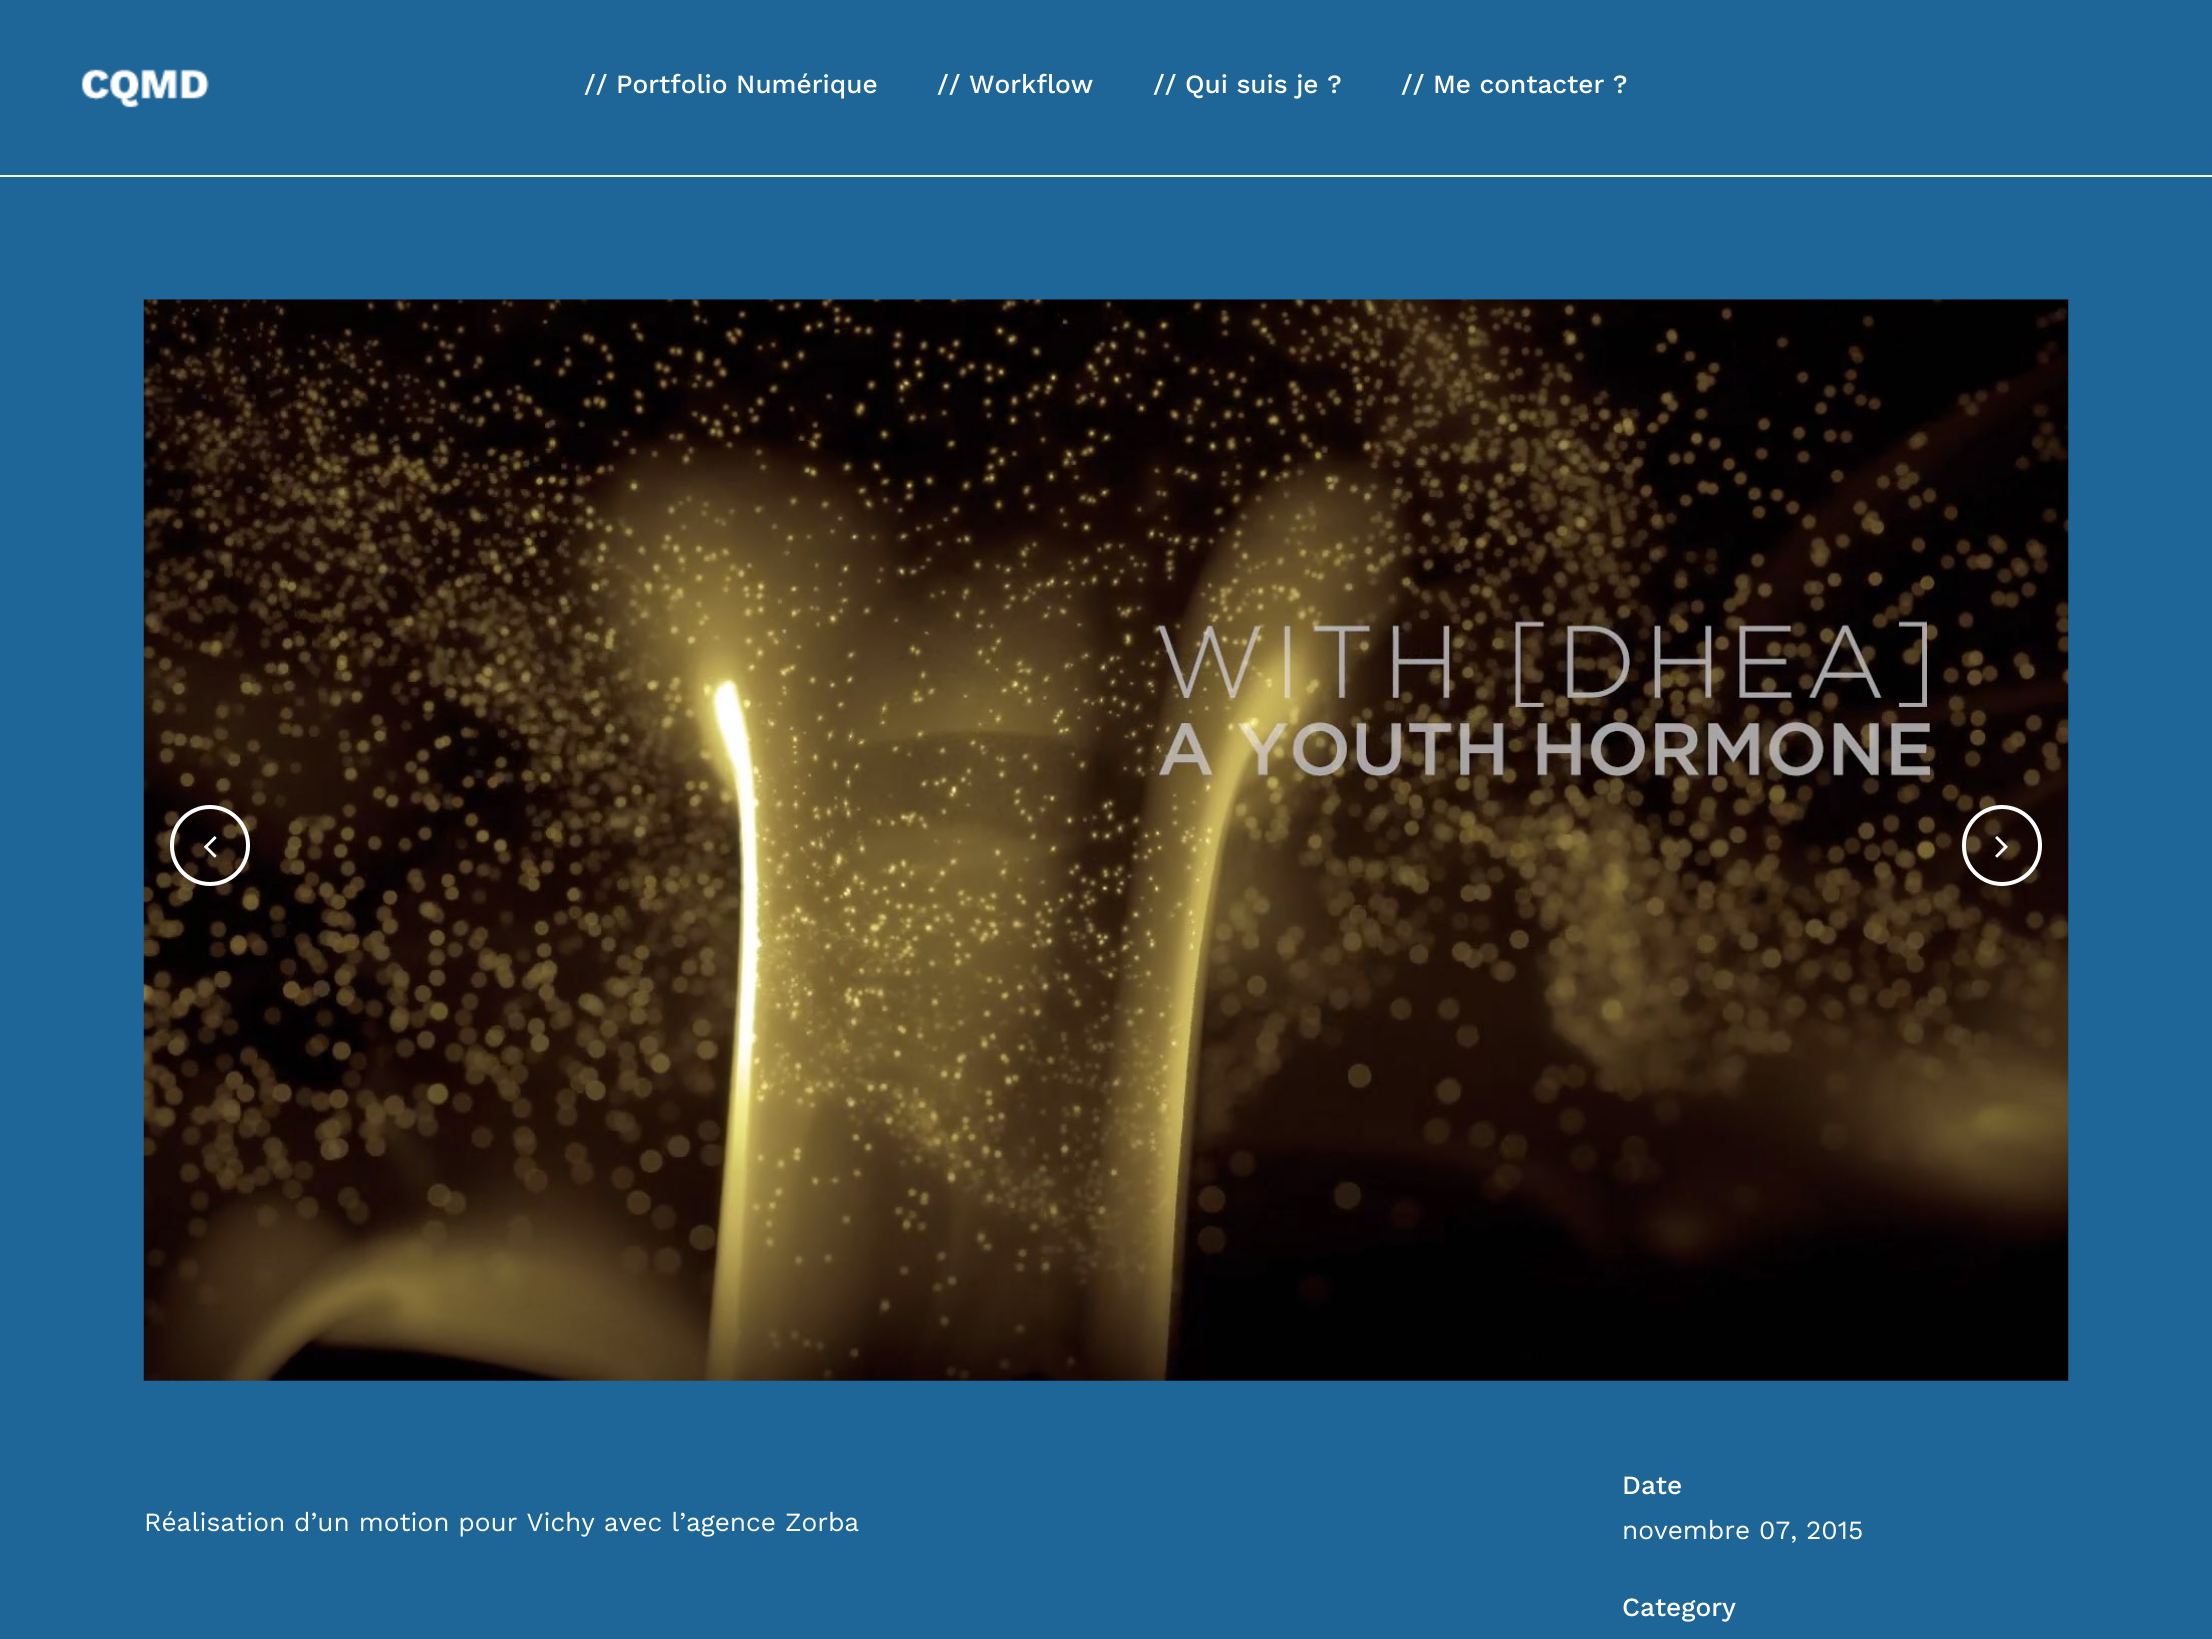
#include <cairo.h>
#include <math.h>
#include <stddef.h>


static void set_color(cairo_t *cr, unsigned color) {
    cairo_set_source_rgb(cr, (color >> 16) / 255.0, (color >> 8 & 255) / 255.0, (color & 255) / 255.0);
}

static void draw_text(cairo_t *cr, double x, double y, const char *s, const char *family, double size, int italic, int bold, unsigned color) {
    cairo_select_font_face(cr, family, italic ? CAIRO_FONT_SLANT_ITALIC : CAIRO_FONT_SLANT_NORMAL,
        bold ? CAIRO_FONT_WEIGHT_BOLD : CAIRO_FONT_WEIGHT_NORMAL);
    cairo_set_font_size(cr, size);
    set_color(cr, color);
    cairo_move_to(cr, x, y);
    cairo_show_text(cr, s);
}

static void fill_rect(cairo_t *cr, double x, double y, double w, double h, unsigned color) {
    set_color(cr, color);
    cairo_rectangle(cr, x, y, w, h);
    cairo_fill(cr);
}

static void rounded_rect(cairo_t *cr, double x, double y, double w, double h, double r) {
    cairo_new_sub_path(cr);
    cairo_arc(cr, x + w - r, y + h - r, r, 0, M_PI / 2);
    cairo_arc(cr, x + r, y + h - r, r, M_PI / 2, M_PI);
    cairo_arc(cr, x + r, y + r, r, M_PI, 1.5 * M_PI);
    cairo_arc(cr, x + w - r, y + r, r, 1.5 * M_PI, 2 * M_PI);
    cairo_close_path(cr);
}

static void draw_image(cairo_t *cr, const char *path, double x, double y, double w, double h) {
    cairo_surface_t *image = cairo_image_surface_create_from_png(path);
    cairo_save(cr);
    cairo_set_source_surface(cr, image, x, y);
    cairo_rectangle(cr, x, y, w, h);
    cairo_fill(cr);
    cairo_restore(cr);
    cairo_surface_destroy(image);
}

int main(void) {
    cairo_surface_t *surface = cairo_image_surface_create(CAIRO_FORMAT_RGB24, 2212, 1639);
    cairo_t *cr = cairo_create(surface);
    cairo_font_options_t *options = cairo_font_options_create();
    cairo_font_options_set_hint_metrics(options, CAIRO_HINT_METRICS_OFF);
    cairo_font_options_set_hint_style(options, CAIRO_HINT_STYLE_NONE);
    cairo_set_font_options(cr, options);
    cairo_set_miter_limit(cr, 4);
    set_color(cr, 0x1E6698);
    cairo_paint(cr);
    fill_rect(cr, 0, 175, 2212, 2, 0xFFFFFF);
    draw_image(cr, "assets/img1.png", 81, 69, 128, 39);
    draw_text(cr, 584, 93, "// Portfolio Numérique", "Work Sans Medium", 26.25, 0, 0, 0xFFFFFF);
    draw_text(cr, 937, 93, "// Workflow", "Work Sans Medium", 26.25, 0, 0, 0xFFFFFF);
    draw_text(cr, 1153, 93, "// Qui suis je ?", "Work Sans Medium", 26.25, 0, 0, 0xFFFFFF);
    draw_text(cr, 1401, 93, "// Me contacter ?", "Work Sans Medium", 26.25, 0, 0, 0xFFFFFF);
    draw_image(cr, "assets/img2.png", 143, 299, 1926, 1082);
    rounded_rect(cr, 172, 807, 76, 77, 38);
    cairo_set_line_width(cr, 4);
    cairo_stroke(cr);
    draw_image(cr, "assets/img3.png", 204, 836, 13, 22);
    rounded_rect(cr, 1964, 807, 76, 77, 38);
    cairo_stroke(cr);
    draw_image(cr, "assets/img4.png", 1995, 836, 13, 22);
    draw_text(cr, 144, 1531, "Réalisation d’un motion pour Vichy avec l’agence Zorba", "Work Sans", 26.25, 0, 0, 0xFFFFFF);
    draw_text(cr, 1622, 1494, "Date", "Work Sans Medium", 26.25, 0, 0, 0xFFFFFF);
    draw_text(cr, 1622, 1539, "novembre 07, 2015", "Work Sans", 26.25, 0, 0, 0xFFFFFF);
    draw_text(cr, 1622, 1616, "Category", "Work Sans Medium", 26.25, 0, 0, 0xFFFFFF);
    cairo_surface_write_to_png(surface, "output.png");
    cairo_font_options_destroy(options);
    cairo_destroy(cr);
    cairo_surface_destroy(surface);
    return 0;
}
